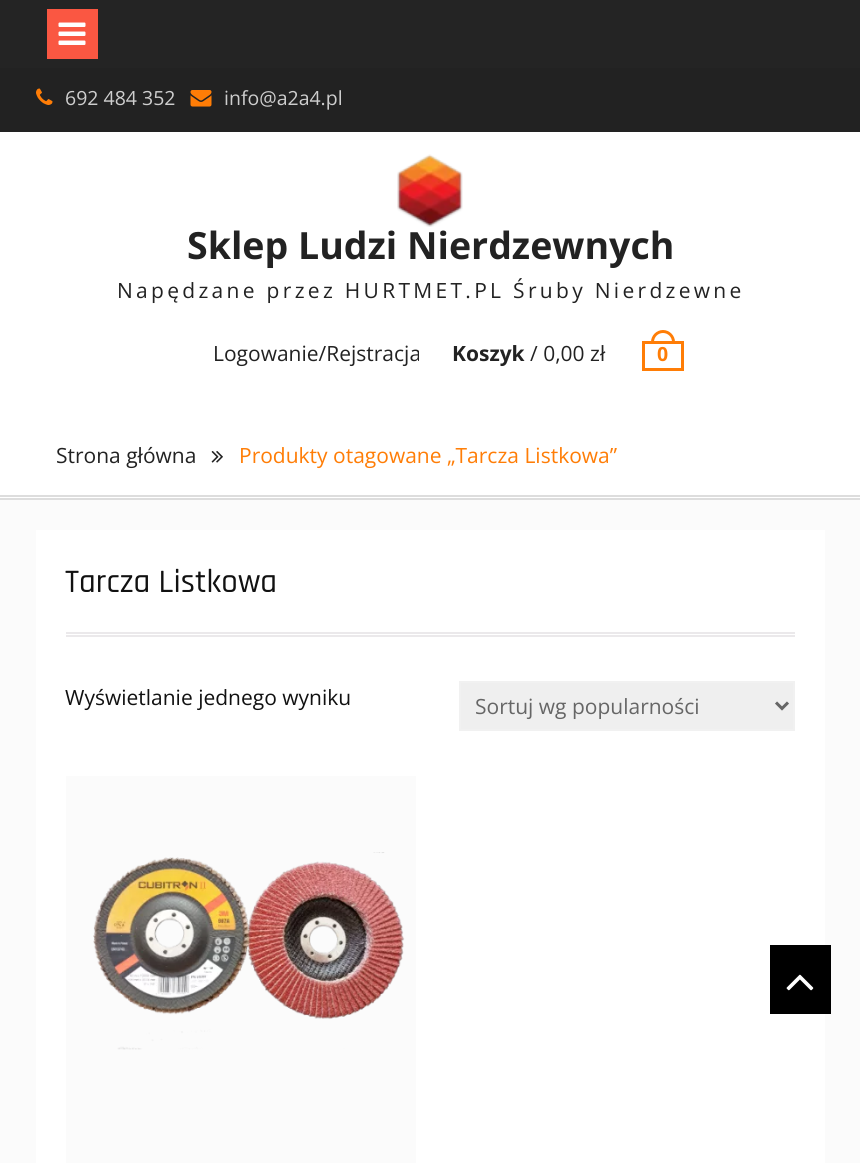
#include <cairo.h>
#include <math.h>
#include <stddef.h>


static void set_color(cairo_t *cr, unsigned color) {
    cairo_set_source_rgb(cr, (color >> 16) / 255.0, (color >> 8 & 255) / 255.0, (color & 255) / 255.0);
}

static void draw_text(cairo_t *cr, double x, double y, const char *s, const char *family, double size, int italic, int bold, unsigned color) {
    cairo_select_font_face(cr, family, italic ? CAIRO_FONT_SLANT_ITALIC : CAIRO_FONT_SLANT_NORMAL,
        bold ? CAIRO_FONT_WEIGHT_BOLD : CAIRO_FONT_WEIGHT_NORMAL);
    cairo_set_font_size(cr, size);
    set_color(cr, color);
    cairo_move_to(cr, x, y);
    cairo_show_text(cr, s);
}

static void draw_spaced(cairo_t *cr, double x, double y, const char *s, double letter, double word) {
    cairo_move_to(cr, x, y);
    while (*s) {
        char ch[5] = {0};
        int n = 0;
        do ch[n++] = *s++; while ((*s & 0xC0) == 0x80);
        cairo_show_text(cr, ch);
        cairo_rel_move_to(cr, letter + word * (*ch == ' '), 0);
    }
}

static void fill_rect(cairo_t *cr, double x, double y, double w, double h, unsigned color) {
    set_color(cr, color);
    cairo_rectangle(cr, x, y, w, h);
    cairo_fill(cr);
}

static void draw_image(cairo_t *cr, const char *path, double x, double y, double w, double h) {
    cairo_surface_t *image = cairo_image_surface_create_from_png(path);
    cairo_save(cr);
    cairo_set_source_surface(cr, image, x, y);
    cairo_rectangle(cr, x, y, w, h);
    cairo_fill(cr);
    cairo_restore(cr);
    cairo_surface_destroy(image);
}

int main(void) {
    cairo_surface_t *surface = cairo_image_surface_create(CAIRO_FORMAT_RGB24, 860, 1163);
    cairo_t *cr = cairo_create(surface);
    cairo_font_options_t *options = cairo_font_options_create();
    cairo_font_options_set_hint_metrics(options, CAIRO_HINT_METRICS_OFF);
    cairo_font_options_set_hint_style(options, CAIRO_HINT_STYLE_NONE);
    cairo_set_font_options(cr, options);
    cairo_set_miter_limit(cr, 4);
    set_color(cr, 0xFBFBFB);
    cairo_paint(cr);
    fill_rect(cr, 0, 0, 860, 68, 0x242424);
    fill_rect(cr, 47, 9, 51, 50, 0xFA5742);
    draw_image(cr, "assets/img1.png", 58, 22, 28, 23);
    fill_rect(cr, 0, 68, 860, 64, 0x222222);
    draw_image(cr, "assets/img2.png", 36, 88, 17, 17);
    draw_text(cr, 65, 105, "692 484 352", "Open Sans", 19.5, 0, 0, 0xCECECE);
    draw_image(cr, "assets/img3.png", 190, 90, 22, 17);
    draw_text(cr, 224, 105, "info@a2a4.pl", "Open Sans", 19.5, 0, 0, 0xCECECE);
    fill_rect(cr, 0, 132, 860, 366, 0xFFFFFF);
    draw_image(cr, "assets/img4.png", 397, 154, 66, 73);
    draw_text(cr, 187, 259, "Sklep Ludzi Nierdzewnych", "Open Sans", 37.5, 0, 1, 0x222222);
    cairo_select_font_face(cr, "Open Sans", CAIRO_FONT_SLANT_NORMAL, CAIRO_FONT_WEIGHT_NORMAL);
    cairo_set_font_size(cr, 21);
    draw_spaced(cr, 117, 298, "Napędzane przez HURTMET.PL Śruby Nierdzewne", 3.3, 0);
    draw_text(cr, 213, 361, "Logowanie/Rejstracja", "Open Sans", 21, 0, 0, 0x222222);
    draw_text(cr, 452, 361, "Koszyk", "Open Sans", 21, 0, 1, 0x222222);
    draw_text(cr, 530, 361, "/ 0,00 zł", "Open Sans", 21, 0, 0, 0x222222);
    set_color(cr, 0xFF7D06);
    cairo_set_fill_rule(cr, CAIRO_FILL_RULE_EVEN_ODD);
    cairo_new_path(cr);
    cairo_move_to(cr, 663, 330);
    cairo_curve_to(cr, 669.5, 330, 675, 335.5, 675, 342);
    cairo_line_to(cr, 651, 342);
    cairo_curve_to(cr, 651, 335.5, 656.5, 330, 663, 330);
    cairo_close_path(cr);
    cairo_move_to(cr, 663, 333);
    cairo_curve_to(cr, 668, 333, 672, 337, 672, 342);
    cairo_line_to(cr, 654, 342);
    cairo_curve_to(cr, 654, 337, 658, 333, 663, 333);
    cairo_close_path(cr);
    cairo_fill(cr);
    cairo_rectangle(cr, 643.5, 342.5, 39, 27);
    cairo_set_line_width(cr, 3);
    cairo_stroke(cr);
    draw_text(cr, 657, 361, "0", "Open Sans", 19.5, 0, 1, 0xFF7D06);
    fill_rect(cr, 0, 495, 860, 2, 0xDDDDDD);
    fill_rect(cr, 0, 498, 860, 2, 0xDDDDDD);
    draw_text(cr, 56, 463, "Strona główna", "Open Sans", 21, 0, 0, 0x222222);
    draw_image(cr, "assets/img5.png", 211, 451, 12, 12);
    draw_text(cr, 239, 463, "Produkty otagowane „Tarcza Listkowa”", "Open Sans", 21, 0, 0, 0xFF7D06);
    fill_rect(cr, 36, 530, 789, 633, 0xFFFFFF);
    fill_rect(cr, 66, 632, 729, 2, 0xEBE9EB);
    fill_rect(cr, 66, 635, 729, 2, 0xEBE9EB);
    draw_text(cr, 65, 592, "Tarcza Listkowa", "Rajdhani Medium", 33, 0, 0, 0x111111);
    draw_text(cr, 65, 705, "Wyświetlanie jednego wyniku", "Open Sans", 21, 0, 0, 0x111111);
    set_color(cr, 0xEFEFEF);
    cairo_rectangle(cr, 460, 682, 334, 48);
    cairo_fill_preserve(cr);
    set_color(cr, 0xF1F1F1);
    cairo_set_line_width(cr, 2);
    cairo_stroke(cr);
    cairo_new_path(cr);
    cairo_move_to(cr, 776, 702.5);
    cairo_line_to(cr, 782, 708.5);
    cairo_line_to(cr, 788, 702.5);
    set_color(cr, 0x666666);
    cairo_set_line_width(cr, 3);
    cairo_stroke(cr);
    draw_text(cr, 475, 714, "Sortuj wg popularności", "Open Sans", 21, 0, 0, 0x666666);
    fill_rect(cr, 66, 776, 350, 387, 0xFBFBFB);
    draw_image(cr, "assets/img6.png", 93, 852, 312, 198);
    fill_rect(cr, 770, 945, 61, 69, 0x000000);
    draw_image(cr, "assets/img7.png", 786, 974, 28, 17);
    cairo_surface_write_to_png(surface, "output.png");
    cairo_font_options_destroy(options);
    cairo_destroy(cr);
    cairo_surface_destroy(surface);
    return 0;
}
